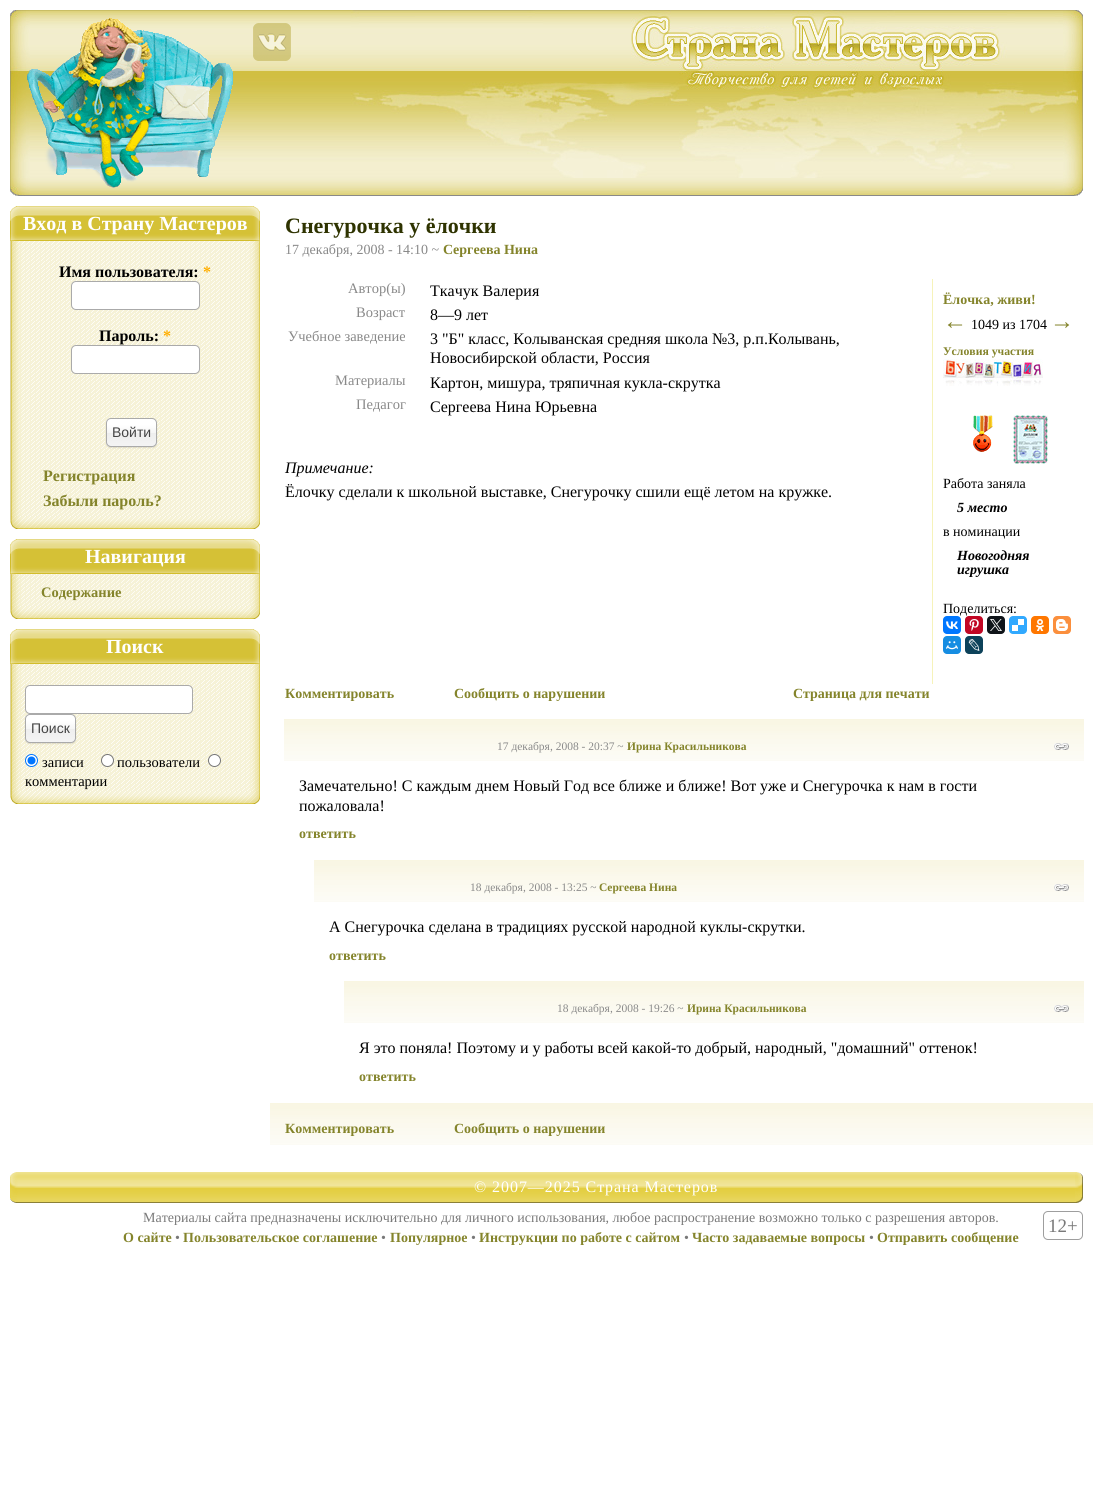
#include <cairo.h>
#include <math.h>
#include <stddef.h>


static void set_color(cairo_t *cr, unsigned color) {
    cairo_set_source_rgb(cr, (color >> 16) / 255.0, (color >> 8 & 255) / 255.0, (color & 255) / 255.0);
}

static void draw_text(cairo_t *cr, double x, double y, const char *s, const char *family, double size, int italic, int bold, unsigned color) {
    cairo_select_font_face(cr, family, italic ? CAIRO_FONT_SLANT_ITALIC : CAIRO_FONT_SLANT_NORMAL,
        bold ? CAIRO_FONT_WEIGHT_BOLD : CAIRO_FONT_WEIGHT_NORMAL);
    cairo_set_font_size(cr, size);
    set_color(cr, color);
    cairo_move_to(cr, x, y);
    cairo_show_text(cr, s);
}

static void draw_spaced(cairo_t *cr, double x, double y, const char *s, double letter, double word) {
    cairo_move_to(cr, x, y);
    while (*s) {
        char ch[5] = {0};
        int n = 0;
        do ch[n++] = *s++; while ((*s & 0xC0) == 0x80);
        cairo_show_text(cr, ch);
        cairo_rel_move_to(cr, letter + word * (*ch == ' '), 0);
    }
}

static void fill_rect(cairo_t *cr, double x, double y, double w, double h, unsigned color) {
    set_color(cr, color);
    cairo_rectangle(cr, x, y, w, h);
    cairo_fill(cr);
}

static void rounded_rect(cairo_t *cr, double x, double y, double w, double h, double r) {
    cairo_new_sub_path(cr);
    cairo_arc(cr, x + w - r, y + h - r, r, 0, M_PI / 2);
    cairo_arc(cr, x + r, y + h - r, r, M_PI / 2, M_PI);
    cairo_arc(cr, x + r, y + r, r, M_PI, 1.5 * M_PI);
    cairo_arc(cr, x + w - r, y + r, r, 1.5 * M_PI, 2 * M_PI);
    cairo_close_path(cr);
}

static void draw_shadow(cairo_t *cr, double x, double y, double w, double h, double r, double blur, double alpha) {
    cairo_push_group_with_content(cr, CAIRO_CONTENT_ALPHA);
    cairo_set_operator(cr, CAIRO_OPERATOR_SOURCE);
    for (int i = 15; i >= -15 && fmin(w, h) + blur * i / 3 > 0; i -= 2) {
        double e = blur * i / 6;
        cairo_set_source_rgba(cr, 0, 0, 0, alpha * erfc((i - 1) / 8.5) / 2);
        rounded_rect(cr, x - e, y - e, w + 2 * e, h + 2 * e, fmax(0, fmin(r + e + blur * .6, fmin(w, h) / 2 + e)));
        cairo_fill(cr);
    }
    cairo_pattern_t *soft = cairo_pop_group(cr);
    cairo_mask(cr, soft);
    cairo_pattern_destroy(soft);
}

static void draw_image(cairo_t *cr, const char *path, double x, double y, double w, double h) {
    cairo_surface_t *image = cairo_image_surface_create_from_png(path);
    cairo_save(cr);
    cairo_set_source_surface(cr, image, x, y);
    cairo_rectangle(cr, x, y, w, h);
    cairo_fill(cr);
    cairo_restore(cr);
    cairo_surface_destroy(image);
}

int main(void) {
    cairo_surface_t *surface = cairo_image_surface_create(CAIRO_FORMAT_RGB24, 1093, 1498);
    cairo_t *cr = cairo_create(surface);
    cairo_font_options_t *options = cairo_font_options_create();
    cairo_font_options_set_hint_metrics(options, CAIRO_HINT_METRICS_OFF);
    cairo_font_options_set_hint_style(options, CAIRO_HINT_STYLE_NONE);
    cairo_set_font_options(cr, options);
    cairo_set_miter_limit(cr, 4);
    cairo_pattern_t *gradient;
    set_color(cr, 0xFFFFFF);
    cairo_paint(cr);
    draw_image(cr, "assets/img1.png", 30, 10, 321, 186);
    draw_image(cr, "assets/img2.png", 10, 10, 20, 186);
    draw_image(cr, "assets/img3.png", 351, 10, 732, 186);
    draw_image(cr, "assets/img4.png", 27, 18, 206, 170);
    draw_image(cr, "assets/img5.png", 253, 23, 38, 38);
    draw_image(cr, "assets/img6.png", 10, 241, 250, 275);
    draw_image(cr, "assets/img7.png", 10, 206, 250, 35);
    draw_text(cr, 23, 230, "Вход в Страну Мастеров", "Liberation Serif", 20, 0, 1, 0xFFFFFF);
    draw_text(cr, 59, 277, "Имя пользователя:", "Liberation Serif", 16, 0, 1, 0x000000);
    draw_text(cr, 203, 277, "*", "Liberation Serif", 16, 0, 1, 0xFFAE00);
    set_color(cr, 0xFFFFFF);
    rounded_rect(cr, 71.5, 281.5, 128, 28, 4.5);
    cairo_fill_preserve(cr);
    set_color(cr, 0xAAAAAA);
    cairo_set_line_width(cr, 1);
    cairo_stroke(cr);
    draw_text(cr, 99, 341, "Пароль:", "Liberation Serif", 16, 0, 1, 0x000000);
    draw_text(cr, 163, 341, "*", "Liberation Serif", 16, 0, 1, 0xFFAE00);
    set_color(cr, 0xFFFFFF);
    rounded_rect(cr, 71.5, 345.5, 128, 28, 4.5);
    cairo_fill_preserve(cr);
    set_color(cr, 0xAAAAAA);
    cairo_stroke(cr);
    set_color(cr, 0x000000);
    draw_shadow(cr, 106, 419, 51, 29, 5, 0.5, 0.1);
    cairo_save(cr);
    rounded_rect(cr, 106, 418, 51, 29, 5);
    cairo_clip(cr);
    gradient = cairo_pattern_create_linear(132, 419, 132, 446);
    cairo_pattern_add_color_stop_rgba(gradient, 0.2, 1, 1, 1, 1);
    cairo_pattern_add_color_stop_rgba(gradient, 0.5, 0.965, 0.965, 0.965, 1);
    cairo_pattern_add_color_stop_rgba(gradient, 0.52, 0.933, 0.933, 0.933, 1);
    cairo_pattern_add_color_stop_rgba(gradient, 1, 0.957, 0.957, 0.957, 1);
    cairo_set_source(cr, gradient);
    cairo_pattern_destroy(gradient);
    cairo_rectangle(cr, 106, 419, 51, 27);
    cairo_fill(cr);
    cairo_restore(cr);
    rounded_rect(cr, 106.5, 418.5, 50, 28, 4.5);
    set_color(cr, 0xAAAAAA);
    cairo_stroke(cr);
    draw_text(cr, 112, 437, "Войти", "Liberation Sans", 14, 0, 0, 0x444444);
    draw_text(cr, 43, 481, "Регистрация", "Liberation Serif", 16, 0, 1, 0x84842B);
    draw_text(cr, 43, 506, "Забыли пароль?", "Liberation Serif", 16, 0, 1, 0x84842B);
    draw_image(cr, "assets/img8.png", 10, 516, 250, 13);
    draw_image(cr, "assets/img9.png", 10, 574, 250, 32);
    draw_image(cr, "assets/img7.png", 10, 539, 250, 35);
    draw_text(cr, 85, 563, "Навигация", "Liberation Serif", 20, 0, 1, 0xFFFFFF);
    draw_text(cr, 41, 597, "Содержание", "Liberation Serif", 14.5, 0, 1, 0x84842B);
    draw_image(cr, "assets/img8.png", 10, 606, 250, 13);
    draw_image(cr, "assets/img10.png", 10, 664, 250, 127);
    draw_image(cr, "assets/img7.png", 10, 629, 250, 35);
    draw_text(cr, 106, 653, "Поиск", "Liberation Serif", 20, 0, 1, 0xFFFFFF);
    rounded_rect(cr, 25.5, 685.5, 167, 28, 4.5);
    cairo_fill_preserve(cr);
    set_color(cr, 0xAAAAAA);
    cairo_stroke(cr);
    set_color(cr, 0x000000);
    draw_shadow(cr, 25, 715, 51, 29, 5, 0.5, 0.1);
    cairo_save(cr);
    rounded_rect(cr, 25, 714, 51, 29, 5);
    cairo_clip(cr);
    gradient = cairo_pattern_create_linear(51, 715, 51, 742);
    cairo_pattern_add_color_stop_rgba(gradient, 0.2, 1, 1, 1, 1);
    cairo_pattern_add_color_stop_rgba(gradient, 0.5, 0.965, 0.965, 0.965, 1);
    cairo_pattern_add_color_stop_rgba(gradient, 0.52, 0.933, 0.933, 0.933, 1);
    cairo_pattern_add_color_stop_rgba(gradient, 1, 0.957, 0.957, 0.957, 1);
    cairo_set_source(cr, gradient);
    cairo_pattern_destroy(gradient);
    cairo_rectangle(cr, 25, 715, 51, 27);
    cairo_fill(cr);
    cairo_restore(cr);
    rounded_rect(cr, 25.5, 714.5, 50, 28, 4.5);
    set_color(cr, 0xAAAAAA);
    cairo_stroke(cr);
    draw_text(cr, 31, 733, "Поиск", "Liberation Sans", 14, 0, 0, 0x444444);
    set_color(cr, 0xFFFFFF);
    cairo_new_path(cr);
    cairo_arc(cr, 31.5, 760.5, 6, 0, 2 * M_PI);
    cairo_fill_preserve(cr);
    set_color(cr, 0x0075FF);
    cairo_stroke(cr);
    cairo_arc(cr, 31.5, 760.5, 4, 0, 2 * M_PI);
    cairo_fill(cr);
    draw_text(cr, 42, 767, "записи", "Liberation Serif", 14.5, 0, 0, 0x000000);
    set_color(cr, 0xFFFFFF);
    cairo_new_path(cr);
    cairo_arc(cr, 107.5, 760.5, 6, 0, 2 * M_PI);
    cairo_fill_preserve(cr);
    set_color(cr, 0x767676);
    cairo_stroke(cr);
    draw_text(cr, 117, 767, "пользователи", "Liberation Serif", 14.5, 0, 0, 0x000000);
    set_color(cr, 0xFFFFFF);
    cairo_new_path(cr);
    cairo_arc(cr, 214.5, 760.5, 6, 0, 2 * M_PI);
    cairo_fill_preserve(cr);
    set_color(cr, 0x767676);
    cairo_stroke(cr);
    draw_text(cr, 25, 786, "комментарии", "Liberation Serif", 14.5, 0, 0, 0x000000);
    draw_image(cr, "assets/img8.png", 10, 791, 250, 13);
    draw_text(cr, 285, 233, "Снегурочка у ёлочки", "Liberation Serif", 22, 0, 1, 0x2E3300);
    draw_text(cr, 285, 254, "17 декабря, 2008 - 14:10 ~", "Liberation Serif", 14, 0, 0, 0x898989);
    draw_text(cr, 443, 254, "Сергеева Нина", "Liberation Serif", 14, 0, 1, 0x84842B);
    draw_text(cr, 348, 293, "Автор(ы)", "Liberation Serif", 14.5, 0, 0, 0x898989);
    draw_text(cr, 430, 296, "Ткачук Валерия", "Liberation Serif", 16, 0, 0, 0x000000);
    draw_text(cr, 356, 317, "Возраст", "Liberation Serif", 14.5, 0, 0, 0x898989);
    draw_text(cr, 430, 320, "8—9 лет", "Liberation Serif", 16, 0, 0, 0x000000);
    draw_text(cr, 288, 341, "Учебное заведение", "Liberation Serif", 14.5, 0, 0, 0x898989);
    draw_text(cr, 430, 344, "3 \"Б\" класс, Колыванская средняя школа №3, р.п.Колывань,", "Liberation Serif", 16, 0, 0, 0x000000);
    draw_text(cr, 430, 363, "Новосибирской области, Россия", "Liberation Serif", 16, 0, 0, 0x000000);
    draw_text(cr, 335, 385, "Материалы", "Liberation Serif", 14.5, 0, 0, 0x898989);
    draw_text(cr, 430, 388, "Картон, мишура, тряпичная кукла-скрутка", "Liberation Serif", 16, 0, 0, 0x000000);
    draw_text(cr, 356, 409, "Педагог", "Liberation Serif", 14.5, 0, 0, 0x898989);
    draw_text(cr, 430, 412, "Сергеева Нина Юрьевна", "Liberation Serif", 16, 0, 0, 0x000000);
    fill_rect(cr, 932, 279, 1, 405, 0xF6F3BA);
    draw_text(cr, 943, 304, "Ёлочка, живи!", "Liberation Serif", 14, 0, 1, 0x84842B);
    draw_text(cr, 943, 329, "←", "Liberation Serif", 24, 0, 1, 0x84842B);
    draw_text(cr, 971, 329, "1049 из 1704", "Liberation Serif", 14, 0, 0, 0x000000);
    draw_text(cr, 1050, 329, "→", "Liberation Serif", 24, 0, 1, 0x84842B);
    draw_text(cr, 943, 355, "Условия участия", "Liberation Serif", 11.75, 0, 1, 0x84842B);
    draw_image(cr, "assets/img11.png", 943, 359, 100, 27);
    draw_image(cr, "assets/img12.png", 973, 415, 20, 37);
    draw_image(cr, "assets/img13.png", 1013, 415, 35, 49);
    draw_text(cr, 943, 488, "Работа заняла", "Liberation Serif", 14, 0, 0, 0x000000);
    draw_text(cr, 957, 512, "5 место", "Liberation Serif", 14, 1, 1, 0x000000);
    draw_text(cr, 943, 536, "в номинации", "Liberation Serif", 14, 0, 0, 0x000000);
    draw_text(cr, 957, 560, "Новогодняя", "Liberation Serif", 14, 1, 1, 0x000000);
    draw_text(cr, 957, 574, "игрушка", "Liberation Serif", 14, 1, 1, 0x000000);
    draw_text(cr, 943, 613, "Поделиться:", "Liberation Serif", 14, 0, 0, 0x000000);
    set_color(cr, 0x0077FF);
    rounded_rect(cr, 943, 616, 18, 18, 4);
    cairo_fill(cr);
    draw_image(cr, "assets/img14.png", 946, 621, 12, 8);
    set_color(cr, 0xC20724);
    rounded_rect(cr, 965, 616, 18, 18, 4);
    cairo_fill(cr);
    draw_image(cr, "assets/img15.png", 969, 619, 10, 12);
    set_color(cr, 0x0F1419);
    rounded_rect(cr, 987, 616, 18, 18, 4);
    cairo_fill(cr);
    draw_image(cr, "assets/img16.png", 990, 619, 12, 12);
    set_color(cr, 0x31A9FF);
    rounded_rect(cr, 1009, 616, 18, 18, 4);
    cairo_fill(cr);
    draw_image(cr, "assets/img17.png", 1012, 619, 12, 12);
    set_color(cr, 0xFF7700);
    rounded_rect(cr, 1031, 616, 18, 18, 4);
    cairo_fill(cr);
    draw_image(cr, "assets/img18.png", 1036, 619, 8, 12);
    set_color(cr, 0xFB8F3D);
    rounded_rect(cr, 1053, 616, 18, 18, 4);
    cairo_fill(cr);
    draw_image(cr, "assets/img19.png", 1056, 619, 12, 12);
    set_color(cr, 0x168DE2);
    rounded_rect(cr, 943, 636, 18, 18, 4);
    cairo_fill(cr);
    draw_image(cr, "assets/img20.png", 946, 641, 12, 9);
    set_color(cr, 0x0D425A);
    rounded_rect(cr, 965, 636, 18, 18, 4);
    cairo_fill(cr);
    draw_image(cr, "assets/img21.png", 968, 639, 12, 12);
    draw_text(cr, 285, 473, "Примечание:", "Liberation Serif", 16, 1, 0, 0x000000);
    draw_text(cr, 285, 497, "Ёлочку сделали к школьной выставке, Снегурочку сшили ещё летом на кружке.", "Liberation Serif", 16, 0, 0, 0x000000);
    draw_text(cr, 285, 698, "Комментировать", "Liberation Serif", 14, 0, 1, 0x84842B);
    draw_text(cr, 454, 698, "Сообщить о нарушении", "Liberation Serif", 14, 0, 1, 0x84842B);
    draw_text(cr, 793, 698, "Страница для печати", "Liberation Serif", 14, 0, 1, 0x84842B);
    draw_image(cr, "assets/img22.png", 284, 719, 800, 42);
    draw_text(cr, 497, 750, "17 декабря, 2008 - 20:37 ~", "Liberation Serif", 11.5, 0, 0, 0x898989);
    draw_text(cr, 627, 750, "Ирина Красильникова", "Liberation Serif", 11.5, 0, 1, 0x84842B);
    draw_image(cr, "assets/img23.png", 1054, 743, 15, 7);
    draw_text(cr, 299, 791, "Замечательно! С каждым днем Новый Год все ближе и ближе! Вот уже и Снегурочка к нам в гости", "Liberation Serif", 16, 0, 0, 0x000000);
    draw_text(cr, 299, 811, "пожаловала!", "Liberation Serif", 16, 0, 0, 0x000000);
    draw_text(cr, 299, 838, "ответить", "Liberation Serif", 14, 0, 1, 0x84842B);
    draw_image(cr, "assets/img24.png", 314, 860, 770, 42);
    draw_text(cr, 470, 891, "18 декабря, 2008 - 13:25 ~", "Liberation Serif", 11.5, 0, 0, 0x898989);
    draw_text(cr, 599, 891, "Сергеева Нина", "Liberation Serif", 11.5, 0, 1, 0x84842B);
    draw_image(cr, "assets/img23.png", 1054, 884, 15, 7);
    draw_text(cr, 329, 932, "А Снегурочка сделана в традициях русской народной куклы-скрутки.", "Liberation Serif", 16, 0, 0, 0x000000);
    draw_text(cr, 329, 960, "ответить", "Liberation Serif", 14, 0, 1, 0x84842B);
    draw_image(cr, "assets/img25.png", 344, 981, 740, 42);
    draw_text(cr, 557, 1012, "18 декабря, 2008 - 19:26 ~", "Liberation Serif", 11.5, 0, 0, 0x898989);
    draw_text(cr, 687, 1012, "Ирина Красильникова", "Liberation Serif", 11.5, 0, 1, 0x84842B);
    draw_image(cr, "assets/img23.png", 1054, 1005, 15, 7);
    draw_text(cr, 359, 1053, "Я это поняла! Поэтому и у работы всей какой-то добрый, народный, \"домашний\" оттенок!", "Liberation Serif", 16, 0, 0, 0x000000);
    draw_text(cr, 359, 1081, "ответить", "Liberation Serif", 14, 0, 1, 0x84842B);
    draw_image(cr, "assets/img26.png", 270, 1103, 823, 42);
    draw_text(cr, 285, 1133, "Комментировать", "Liberation Serif", 14, 0, 1, 0x84842B);
    draw_text(cr, 454, 1133, "Сообщить о нарушении", "Liberation Serif", 14, 0, 1, 0x84842B);
    draw_image(cr, "assets/img27.png", 10, 1172, 8, 31);
    draw_image(cr, "assets/img28.png", 1075, 1172, 8, 31);
    draw_image(cr, "assets/img29.png", 18, 1172, 1057, 31);
    cairo_select_font_face(cr, "Liberation Serif", CAIRO_FONT_SLANT_NORMAL, CAIRO_FONT_WEIGHT_NORMAL);
    cairo_set_font_size(cr, 16);
    set_color(cr, 0xFFFFFF);
    draw_spaced(cr, 474, 1192, "© 2007—2025 Страна Мастеров", 0.95, 0);
    draw_text(cr, 143, 1222, "Материалы сайта предназначены исключительно для личного использования, любое распространение возможно только с разрешения авторов.", "Liberation Serif", 14, 0, 0, 0x797979);
    draw_text(cr, 123, 1242, "О сайте", "Liberation Serif", 14, 0, 1, 0x84842B);
    draw_text(cr, 175, 1242, "•", "Liberation Serif", 14, 0, 0, 0x797979);
    draw_text(cr, 183, 1242, "Пользовательское соглашение", "Liberation Serif", 14, 0, 1, 0x84842B);
    draw_text(cr, 381, 1242, "•", "Liberation Serif", 14, 0, 0, 0x797979);
    draw_text(cr, 390, 1242, "Популярное", "Liberation Serif", 14, 0, 1, 0x84842B);
    draw_text(cr, 471, 1242, "•", "Liberation Serif", 14, 0, 0, 0x797979);
    draw_text(cr, 479, 1242, "Инструкции по работе с сайтом", "Liberation Serif", 14, 0, 1, 0x84842B);
    draw_text(cr, 684, 1242, "•", "Liberation Serif", 14, 0, 0, 0x797979);
    draw_text(cr, 692, 1242, "Часто задаваемые вопросы", "Liberation Serif", 14, 0, 1, 0x84842B);
    draw_text(cr, 869, 1242, "•", "Liberation Serif", 14, 0, 0, 0x797979);
    draw_text(cr, 877, 1242, "Отправить сообщение", "Liberation Serif", 14, 0, 1, 0x84842B);
    rounded_rect(cr, 1043.5, 1211.5, 39, 28, 4.5);
    set_color(cr, 0x9E9E9E);
    cairo_stroke(cr);
    draw_text(cr, 1048, 1232, "12+", "Liberation Serif", 19, 0, 0, 0x797979);
    cairo_surface_write_to_png(surface, "output.png");
    cairo_font_options_destroy(options);
    cairo_destroy(cr);
    cairo_surface_destroy(surface);
    return 0;
}
